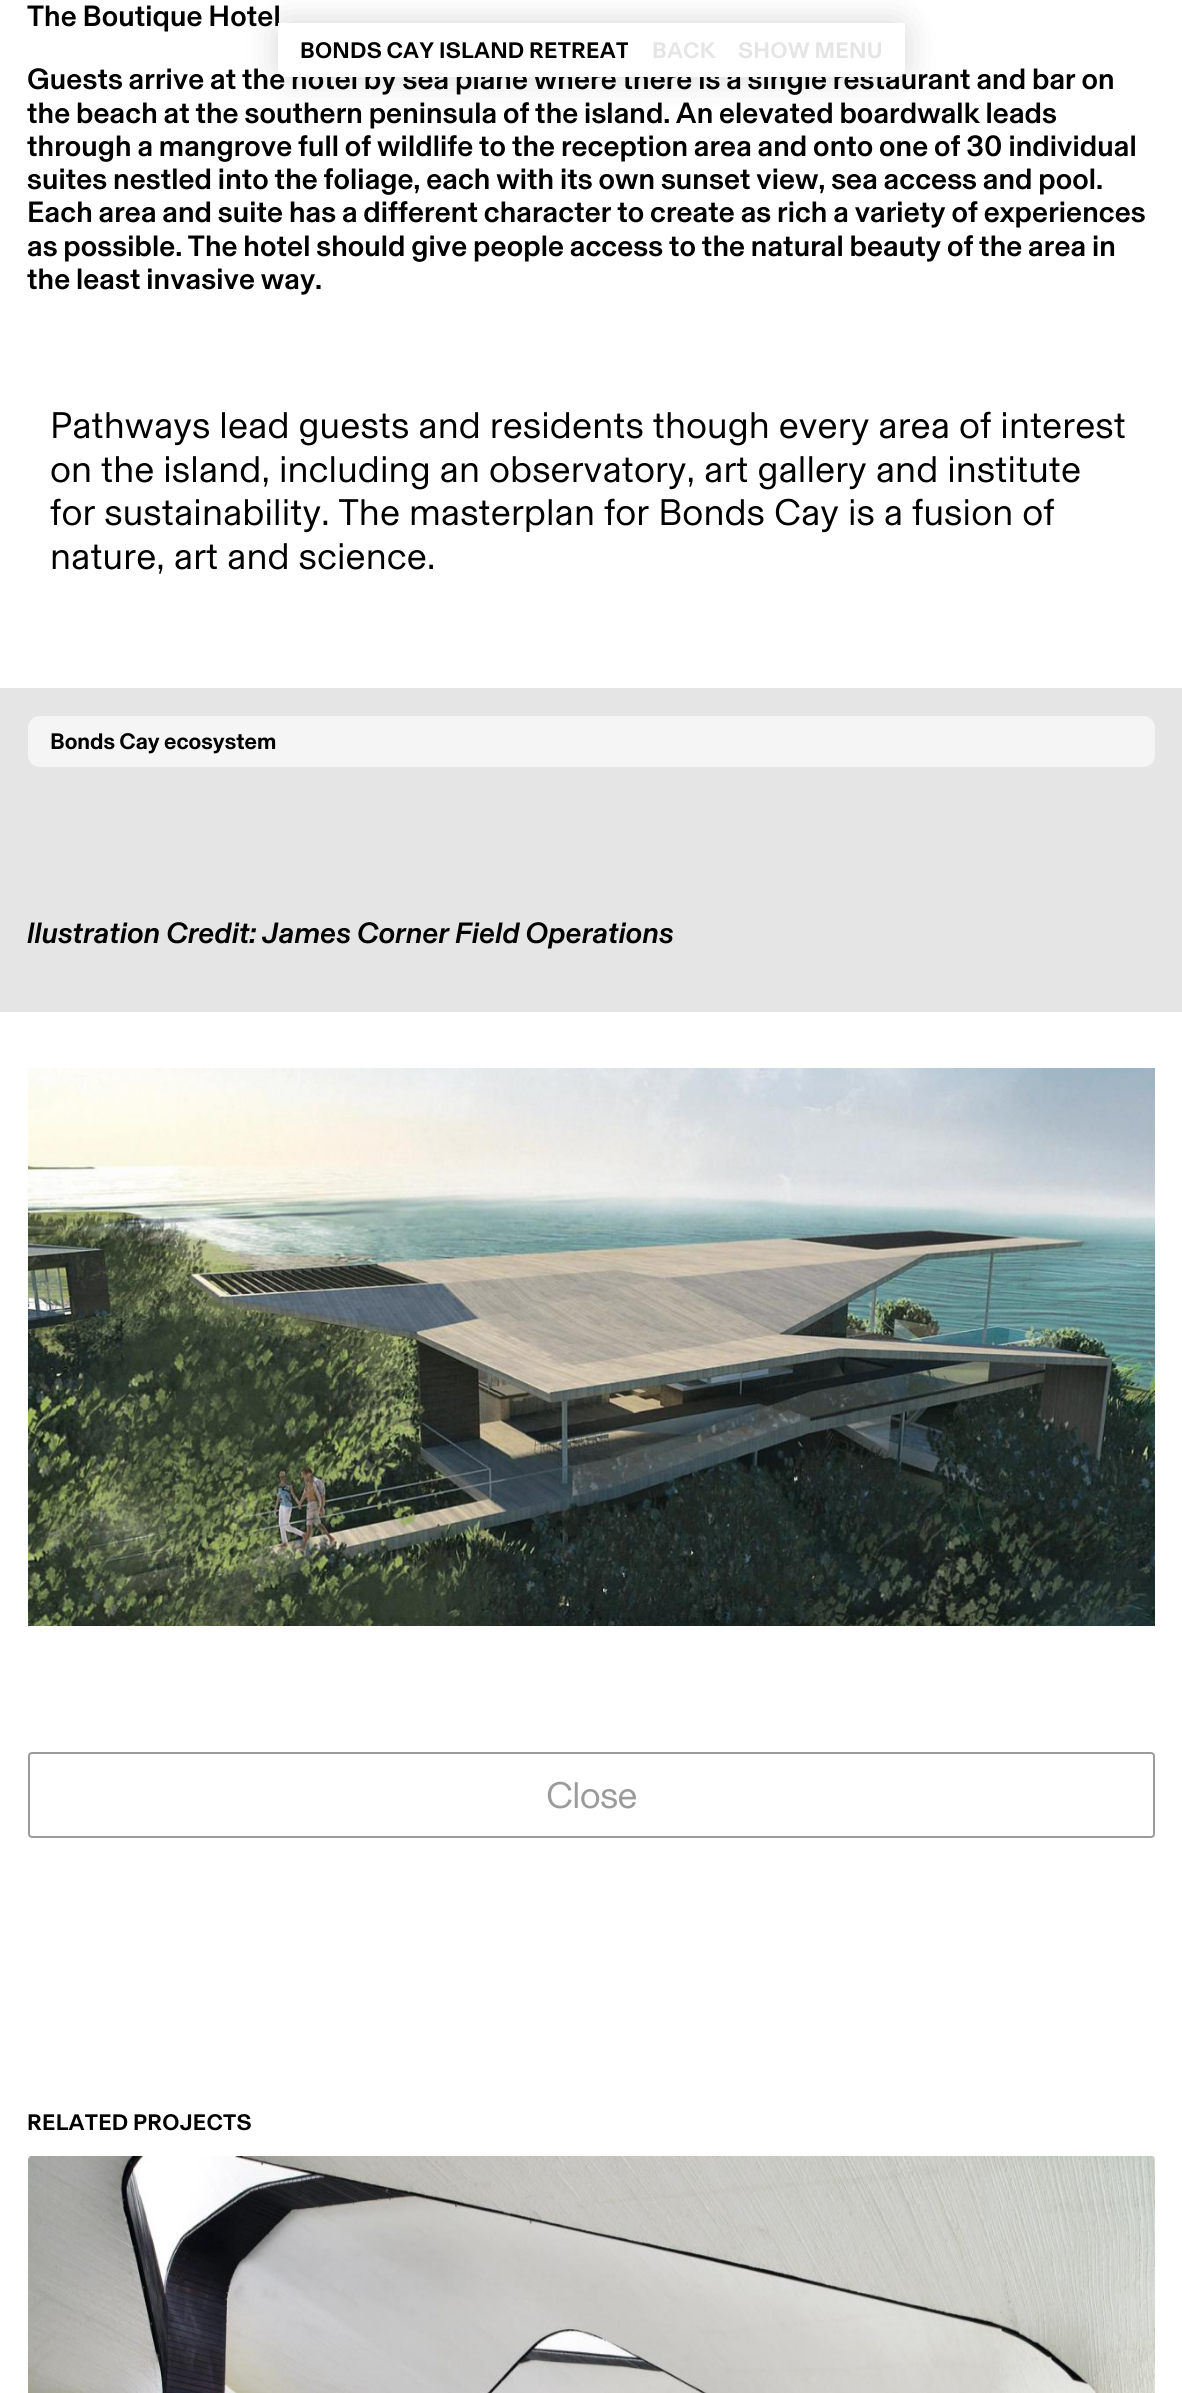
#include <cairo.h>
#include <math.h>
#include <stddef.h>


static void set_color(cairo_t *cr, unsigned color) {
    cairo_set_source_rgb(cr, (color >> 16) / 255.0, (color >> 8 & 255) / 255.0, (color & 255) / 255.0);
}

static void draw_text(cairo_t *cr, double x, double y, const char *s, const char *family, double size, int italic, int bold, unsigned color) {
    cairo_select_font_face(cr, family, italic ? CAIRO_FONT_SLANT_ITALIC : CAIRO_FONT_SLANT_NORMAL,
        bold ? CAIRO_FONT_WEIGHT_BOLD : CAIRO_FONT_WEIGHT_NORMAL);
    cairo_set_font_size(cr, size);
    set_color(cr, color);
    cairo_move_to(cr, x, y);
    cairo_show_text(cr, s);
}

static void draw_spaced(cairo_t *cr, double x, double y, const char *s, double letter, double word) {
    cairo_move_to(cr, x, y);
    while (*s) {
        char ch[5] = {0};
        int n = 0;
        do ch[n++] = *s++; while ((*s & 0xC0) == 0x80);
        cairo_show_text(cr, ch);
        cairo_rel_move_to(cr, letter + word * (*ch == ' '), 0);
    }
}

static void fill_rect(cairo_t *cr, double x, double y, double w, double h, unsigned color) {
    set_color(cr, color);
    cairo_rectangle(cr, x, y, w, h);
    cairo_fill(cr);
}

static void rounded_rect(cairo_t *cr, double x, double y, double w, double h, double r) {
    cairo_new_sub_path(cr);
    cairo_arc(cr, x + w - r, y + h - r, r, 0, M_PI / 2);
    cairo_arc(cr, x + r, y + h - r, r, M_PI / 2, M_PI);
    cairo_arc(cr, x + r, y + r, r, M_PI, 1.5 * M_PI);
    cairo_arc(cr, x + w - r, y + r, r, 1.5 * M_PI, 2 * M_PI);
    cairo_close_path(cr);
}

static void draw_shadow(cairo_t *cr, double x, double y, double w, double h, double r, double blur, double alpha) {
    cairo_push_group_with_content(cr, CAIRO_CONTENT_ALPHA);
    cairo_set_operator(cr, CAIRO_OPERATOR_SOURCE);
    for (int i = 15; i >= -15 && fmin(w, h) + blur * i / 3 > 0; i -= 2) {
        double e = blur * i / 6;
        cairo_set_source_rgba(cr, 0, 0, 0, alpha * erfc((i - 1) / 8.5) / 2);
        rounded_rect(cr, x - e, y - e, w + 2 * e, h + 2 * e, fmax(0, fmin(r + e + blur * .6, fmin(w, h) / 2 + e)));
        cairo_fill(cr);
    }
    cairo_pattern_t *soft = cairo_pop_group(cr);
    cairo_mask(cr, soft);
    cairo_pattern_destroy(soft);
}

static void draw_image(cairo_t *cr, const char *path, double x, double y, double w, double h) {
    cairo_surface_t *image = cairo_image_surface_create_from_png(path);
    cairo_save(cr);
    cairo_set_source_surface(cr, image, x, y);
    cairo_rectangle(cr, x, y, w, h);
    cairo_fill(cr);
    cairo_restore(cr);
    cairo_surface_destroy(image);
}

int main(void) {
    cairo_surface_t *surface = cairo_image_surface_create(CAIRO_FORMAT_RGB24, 1182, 2393);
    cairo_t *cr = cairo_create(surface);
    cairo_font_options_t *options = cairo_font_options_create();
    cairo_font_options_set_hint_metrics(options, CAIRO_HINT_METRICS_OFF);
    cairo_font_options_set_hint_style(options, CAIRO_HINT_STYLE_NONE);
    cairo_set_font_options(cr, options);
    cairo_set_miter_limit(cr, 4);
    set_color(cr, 0xFFFFFF);
    cairo_paint(cr);
    cairo_select_font_face(cr, "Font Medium", CAIRO_FONT_SLANT_NORMAL, CAIRO_FONT_WEIGHT_NORMAL);
    cairo_set_font_size(cr, 29.75);
    set_color(cr, 0x000000);
    draw_spaced(cr, 27, 26, "The Boutique Hotel", 0.1, 0);
    draw_spaced(cr, 27, 89, "Guests arrive at the hotel by sea plane where there is a single restaurant and bar on", 0.1, 0);
    draw_spaced(cr, 27, 123, "the beach at the southern peninsula of the island. An elevated boardwalk leads", 0.1, 0);
    draw_spaced(cr, 27, 156, "through a mangrove full of wildlife to the reception area and onto one of 30 individual", 0.1, 0);
    draw_spaced(cr, 27, 189, "suites nestled into the foliage, each with its own sunset view, sea access and pool.", 0.1, 0);
    draw_spaced(cr, 27, 222, "Each area and suite has a different character to create as rich a variety of experiences", 0.1, 0);
    draw_spaced(cr, 27, 256, "as possible. The hotel should give people access to the natural beauty of the area in", 0.1, 0);
    draw_spaced(cr, 27, 289, "the least invasive way.", 0.1, 0);
    cairo_select_font_face(cr, "Font", CAIRO_FONT_SLANT_NORMAL, CAIRO_FONT_WEIGHT_NORMAL);
    cairo_set_font_size(cr, 37.55);
    draw_spaced(cr, 50, 438, "Pathways lead guests and residents though every area of interest", 0.1, 0);
    draw_spaced(cr, 50, 482, "on the island, including an observatory, art gallery and institute", 0.1, 0);
    draw_spaced(cr, 50, 525, "for sustainability. The masterplan for Bonds Cay is a fusion of", 0.1, 0);
    draw_spaced(cr, 50, 569, "nature, art and science.", 0.1, 0);
    fill_rect(cr, 0, 688, 1182, 324, 0xE5E5E5);
    set_color(cr, 0xF5F5F5);
    rounded_rect(cr, 28, 716, 1127, 51, 12);
    cairo_fill(cr);
    draw_text(cr, 50, 749, "Bonds Cay ecosystem", "Font SemiBold", 22.75, 0, 0, 0x000000);
    cairo_select_font_face(cr, "Font Medium", CAIRO_FONT_SLANT_ITALIC, CAIRO_FONT_WEIGHT_NORMAL);
    cairo_set_font_size(cr, 29.75);
    draw_spaced(cr, 27, 943, "llustration Credit: James Corner Field Operations", 0.1, 0);
    draw_image(cr, "assets/img1.png", 28, 1068, 1127, 558);
    rounded_rect(cr, 29, 1753, 1125, 84, 3);
    set_color(cr, 0x9B9B9B);
    cairo_stroke(cr);
    cairo_select_font_face(cr, "Font", CAIRO_FONT_SLANT_NORMAL, CAIRO_FONT_WEIGHT_NORMAL);
    cairo_set_font_size(cr, 37.55);
    draw_spaced(cr, 546, 1808, "Close", -0.75, 0);
    cairo_select_font_face(cr, "Font SemiBold", CAIRO_FONT_SLANT_NORMAL, CAIRO_FONT_WEIGHT_NORMAL);
    cairo_set_font_size(cr, 22.75);
    set_color(cr, 0x000000);
    draw_spaced(cr, 27, 2130, "RELATED PROJECTS", 0.25, 0);
    draw_image(cr, "assets/img2.png", 28, 2156, 1127, 237);
    set_color(cr, 0x000000);
    draw_shadow(cr, 278, 23, 627, 54, 9, 17.5, 0.16);
    set_color(cr, 0xFFFFFF);
    cairo_new_path(cr);
    cairo_move_to(cr, 278, 23);
    cairo_line_to(cr, 905, 23);
    cairo_line_to(cr, 905, 68);
    cairo_curve_to(cr, 905, 73, 901, 77, 896, 77);
    cairo_line_to(cr, 287, 77);
    cairo_curve_to(cr, 282, 77, 278, 73, 278, 68);
    cairo_close_path(cr);
    cairo_fill(cr);
    cairo_save(cr);
    cairo_rectangle(cr, 301, 39, 327, 22);
    cairo_clip(cr);
    set_color(cr, 0x000000);
    draw_spaced(cr, 300, 58, "BONDS CAY ISLAND RETREAT", 0.25, 0);
    cairo_restore(cr);
    set_color(cr, 0xE5E5E5);
    draw_spaced(cr, 652, 58, "BACK", 0.25, 0);
    draw_spaced(cr, 738, 58, "SHOW MENU", 0.25, 0);
    cairo_surface_write_to_png(surface, "output.png");
    cairo_font_options_destroy(options);
    cairo_destroy(cr);
    cairo_surface_destroy(surface);
    return 0;
}
